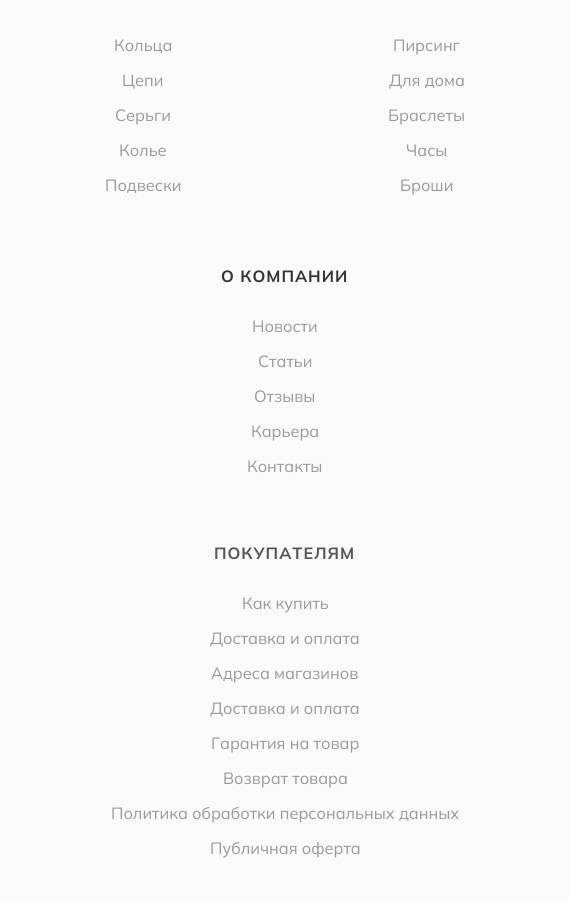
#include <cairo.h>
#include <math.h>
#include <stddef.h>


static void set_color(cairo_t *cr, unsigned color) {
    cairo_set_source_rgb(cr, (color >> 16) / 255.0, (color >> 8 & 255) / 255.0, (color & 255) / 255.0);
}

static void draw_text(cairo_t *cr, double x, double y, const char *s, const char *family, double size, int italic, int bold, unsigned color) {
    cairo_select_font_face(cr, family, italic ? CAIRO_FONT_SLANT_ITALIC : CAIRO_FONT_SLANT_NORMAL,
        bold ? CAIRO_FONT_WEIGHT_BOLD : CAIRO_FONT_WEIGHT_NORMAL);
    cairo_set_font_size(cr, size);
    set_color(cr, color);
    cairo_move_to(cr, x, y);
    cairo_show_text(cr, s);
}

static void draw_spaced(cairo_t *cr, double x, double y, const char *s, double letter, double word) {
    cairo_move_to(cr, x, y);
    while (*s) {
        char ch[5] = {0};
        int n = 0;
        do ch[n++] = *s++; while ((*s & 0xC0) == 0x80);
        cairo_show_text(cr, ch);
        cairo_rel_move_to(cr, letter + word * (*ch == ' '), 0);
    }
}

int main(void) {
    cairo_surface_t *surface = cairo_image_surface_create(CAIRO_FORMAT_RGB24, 569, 901);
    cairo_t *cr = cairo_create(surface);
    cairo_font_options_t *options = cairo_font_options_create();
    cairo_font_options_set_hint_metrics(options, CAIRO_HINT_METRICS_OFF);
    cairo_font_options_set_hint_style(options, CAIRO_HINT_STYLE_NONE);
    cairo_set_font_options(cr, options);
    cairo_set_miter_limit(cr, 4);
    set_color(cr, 0xFAFAFA);
    cairo_paint(cr);
    draw_text(cr, 114, 51, "Кольца", "Mulish", 16.25, 0, 0, 0x999999);
    draw_text(cr, 393, 51, "Пирсинг", "Mulish", 16.25, 0, 0, 0x999999);
    draw_text(cr, 122, 86, "Цепи", "Mulish", 16.25, 0, 0, 0x999999);
    draw_text(cr, 389, 86, "Для дома", "Mulish", 16.25, 0, 0, 0x999999);
    draw_text(cr, 115, 121, "Серьги", "Mulish", 16.25, 0, 0, 0x999999);
    draw_text(cr, 388, 121, "Браслеты", "Mulish", 16.25, 0, 0, 0x999999);
    draw_text(cr, 119, 156, "Колье", "Mulish", 16.25, 0, 0, 0x999999);
    draw_text(cr, 406, 156, "Часы", "Mulish", 16.25, 0, 0, 0x999999);
    draw_text(cr, 105, 191, "Подвески", "Mulish", 16.25, 0, 0, 0x999999);
    draw_text(cr, 400, 191, "Броши", "Mulish", 16.25, 0, 0, 0x999999);
    cairo_select_font_face(cr, "Mulish", CAIRO_FONT_SLANT_NORMAL, CAIRO_FONT_WEIGHT_BOLD);
    set_color(cr, 0x333333);
    draw_spaced(cr, 221, 282, "О КОМПАНИИ", 1, 0);
    draw_text(cr, 252, 332, "Новости", "Mulish", 16.25, 0, 0, 0x999999);
    draw_text(cr, 258, 367, "Статьи", "Mulish", 16.25, 0, 0, 0x999999);
    draw_text(cr, 254, 402, "Отзывы", "Mulish", 16.25, 0, 0, 0x999999);
    draw_text(cr, 251, 437, "Карьера", "Mulish", 16.25, 0, 0, 0x999999);
    draw_text(cr, 247, 472, "Контакты", "Mulish", 16.25, 0, 0, 0x999999);
    cairo_select_font_face(cr, "Mulish", CAIRO_FONT_SLANT_NORMAL, CAIRO_FONT_WEIGHT_BOLD);
    set_color(cr, 0x555555);
    draw_spaced(cr, 214, 559, "ПОКУПАТЕЛЯМ", 1, 0);
    draw_text(cr, 242, 609, "Как купить", "Mulish", 16.25, 0, 0, 0x999999);
    draw_text(cr, 210, 644, "Доставка и оплата", "Mulish", 16.25, 0, 0, 0x999999);
    draw_text(cr, 211, 679, "Адреса магазинов", "Mulish", 16.25, 0, 0, 0x999999);
    draw_text(cr, 210, 714, "Доставка и оплата", "Mulish", 16.25, 0, 0, 0x999999);
    draw_text(cr, 211, 749, "Гарантия на товар", "Mulish", 16.25, 0, 0, 0x999999);
    draw_text(cr, 223, 784, "Возврат товара", "Mulish", 16.25, 0, 0, 0x999999);
    draw_text(cr, 111, 819, "Политика обработки персональных данных", "Mulish", 16.25, 0, 0, 0x999999);
    draw_text(cr, 210, 854, "Публичная оферта", "Mulish", 16.25, 0, 0, 0x999999);
    cairo_surface_write_to_png(surface, "output.png");
    cairo_font_options_destroy(options);
    cairo_destroy(cr);
    cairo_surface_destroy(surface);
    return 0;
}
